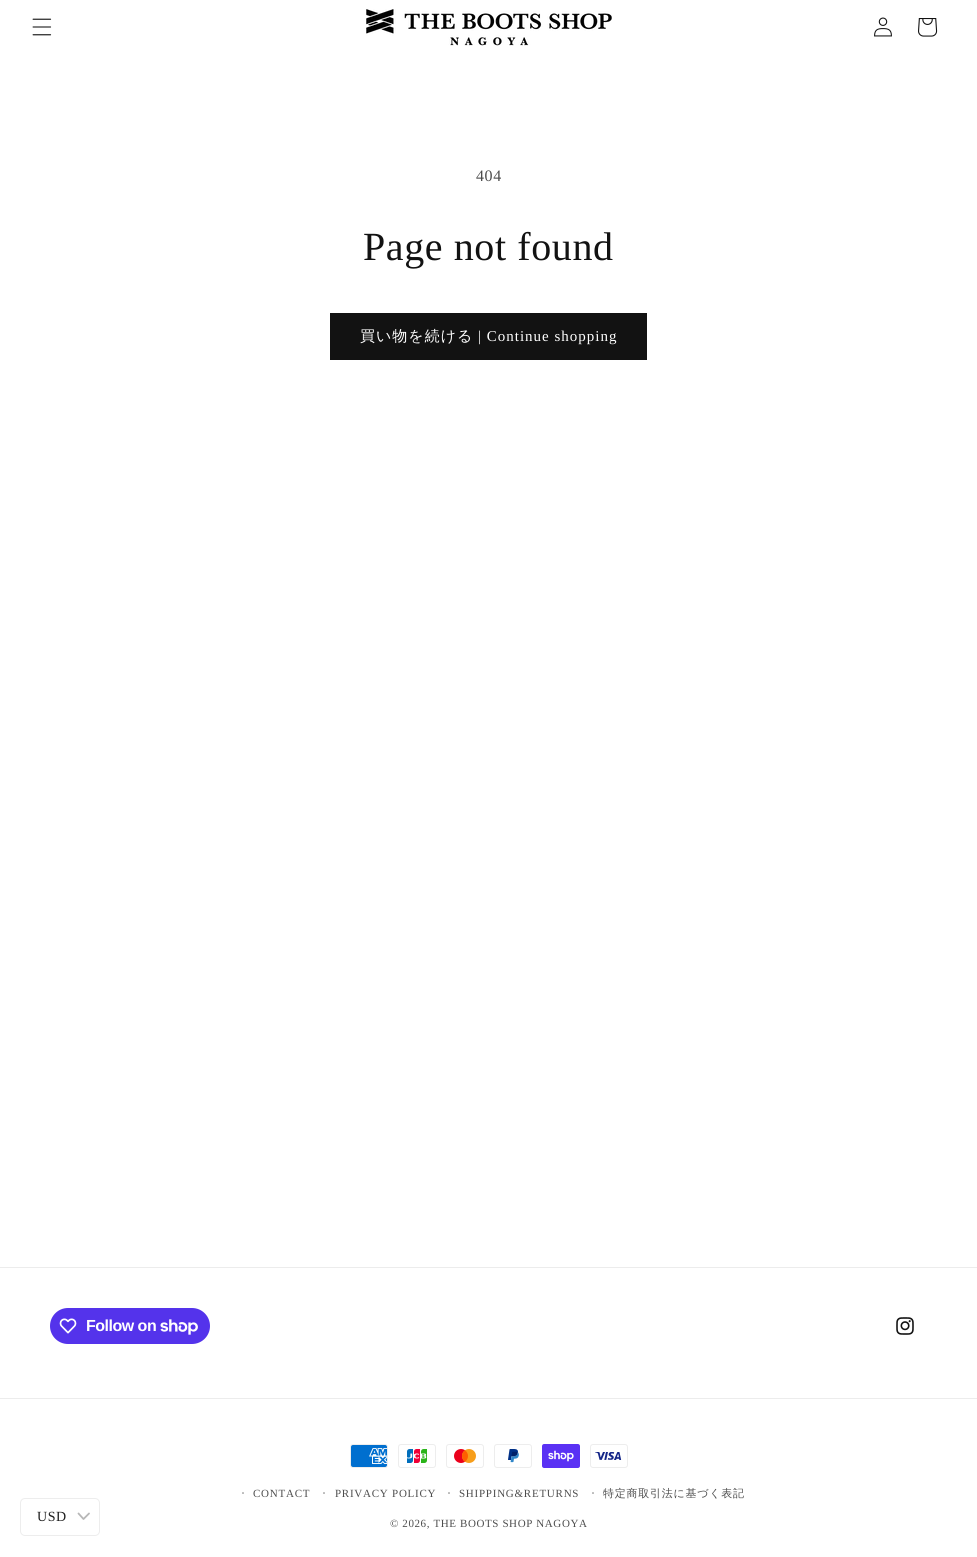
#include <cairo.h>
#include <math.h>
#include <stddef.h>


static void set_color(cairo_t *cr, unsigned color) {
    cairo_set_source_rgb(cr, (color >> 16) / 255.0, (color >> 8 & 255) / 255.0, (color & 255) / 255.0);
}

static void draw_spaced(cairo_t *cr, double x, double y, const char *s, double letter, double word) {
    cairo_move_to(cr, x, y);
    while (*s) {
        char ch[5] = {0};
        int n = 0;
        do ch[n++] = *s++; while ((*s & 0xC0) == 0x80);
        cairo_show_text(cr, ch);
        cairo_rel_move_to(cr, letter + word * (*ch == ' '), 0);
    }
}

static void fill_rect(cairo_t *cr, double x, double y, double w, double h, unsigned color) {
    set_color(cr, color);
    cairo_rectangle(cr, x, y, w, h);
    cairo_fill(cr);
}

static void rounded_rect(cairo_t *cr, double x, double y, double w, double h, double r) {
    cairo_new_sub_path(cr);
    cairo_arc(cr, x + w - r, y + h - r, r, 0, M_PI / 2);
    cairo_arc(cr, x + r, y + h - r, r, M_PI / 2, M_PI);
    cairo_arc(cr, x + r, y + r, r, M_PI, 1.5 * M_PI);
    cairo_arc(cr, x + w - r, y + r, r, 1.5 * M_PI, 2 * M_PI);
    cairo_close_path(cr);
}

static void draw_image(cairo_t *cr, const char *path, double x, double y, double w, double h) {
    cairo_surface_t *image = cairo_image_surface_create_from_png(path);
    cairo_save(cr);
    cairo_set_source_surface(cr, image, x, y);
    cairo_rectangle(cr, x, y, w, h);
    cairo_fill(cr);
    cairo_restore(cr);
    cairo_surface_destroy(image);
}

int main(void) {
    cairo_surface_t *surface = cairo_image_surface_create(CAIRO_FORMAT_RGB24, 977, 1557);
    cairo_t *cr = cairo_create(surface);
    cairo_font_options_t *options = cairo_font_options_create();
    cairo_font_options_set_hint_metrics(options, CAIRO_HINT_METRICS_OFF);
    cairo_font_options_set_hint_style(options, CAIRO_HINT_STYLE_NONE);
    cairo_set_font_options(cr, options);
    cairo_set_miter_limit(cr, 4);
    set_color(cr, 0xFFFFFF);
    cairo_paint(cr);
    draw_image(cr, "assets/img1.png", 32, 18, 20, 18);
    draw_image(cr, "assets/img2.png", 366, 9, 246, 37);
    draw_image(cr, "assets/img3.png", 874, 17, 18, 20);
    draw_image(cr, "assets/img4.png", 918, 18, 20, 19);
    cairo_select_font_face(cr, "Liberation Serif", CAIRO_FONT_SLANT_NORMAL, CAIRO_FONT_WEIGHT_NORMAL);
    cairo_set_font_size(cr, 16);
    set_color(cr, 0x4D4D4D);
    draw_spaced(cr, 476, 181, "404", 0.6, 0);
    cairo_set_font_size(cr, 40);
    set_color(cr, 0x121212);
    draw_spaced(cr, 363, 260, "Page not found", 0.6, 0);
    fill_rect(cr, 330, 313, 317, 47, 0x121212);
    cairo_select_font_face(cr, "WenQuanYi Zen Hei Medium", CAIRO_FONT_SLANT_NORMAL, CAIRO_FONT_WEIGHT_NORMAL);
    cairo_set_font_size(cr, 15);
    set_color(cr, 0xFFFFFF);
    draw_spaced(cr, 360, 341, "買い物を続ける", 1, 0);
    cairo_select_font_face(cr, "Liberation Serif", CAIRO_FONT_SLANT_NORMAL, CAIRO_FONT_WEIGHT_NORMAL);
    draw_spaced(cr, 478, 341, "| Continue shopping", 1, 0);
    rounded_rect(cr, 20.5, 1498.5, 79, 37, 4.5);
    set_color(cr, 0xEDEDED);
    cairo_set_line_width(cr, 1);
    cairo_stroke(cr);
    cairo_set_font_size(cr, 14);
    set_color(cr, 0x1E1E1E);
    draw_spaced(cr, 37, 1521, "USD", 0.6, 0);
    cairo_new_path(cr);
    cairo_move_to(cr, 78.5, 1513.5);
    cairo_line_to(cr, 83.5, 1519);
    cairo_line_to(cr, 89, 1513.5);
    set_color(cr, 0xB7B7B7);
    cairo_set_line_width(cr, 1.8);
    cairo_set_line_cap(cr, CAIRO_LINE_CAP_ROUND);
    cairo_set_line_join(cr, CAIRO_LINE_JOIN_ROUND);
    cairo_stroke(cr);
    fill_rect(cr, 0, 1267, 977, 1, 0xECECEC);
    set_color(cr, 0x5433EB);
    rounded_rect(cr, 50, 1308, 160, 36, 18);
    cairo_fill(cr);
    draw_image(cr, "assets/img5.png", 59, 1318, 18, 16);
    cairo_select_font_face(cr, "Liberation Sans", CAIRO_FONT_SLANT_NORMAL, CAIRO_FONT_WEIGHT_BOLD);
    cairo_set_font_size(cr, 16);
    set_color(cr, 0xFFFFFF);
    draw_spaced(cr, 86, 1331, "Follow on", -0.5, 0);
    draw_image(cr, "assets/img6.png", 160, 1319, 38, 16);
    draw_image(cr, "assets/img7.png", 896, 1317, 18, 18);
    fill_rect(cr, 0, 1398, 977, 1, 0xECECEC);
    draw_image(cr, "assets/img8.png", 350, 1444, 38, 24);
    draw_image(cr, "assets/img9.png", 398, 1444, 38, 24);
    draw_image(cr, "assets/img10.png", 446, 1444, 38, 24);
    draw_image(cr, "assets/img11.png", 494, 1444, 38, 24);
    draw_image(cr, "assets/img12.png", 542, 1444, 38, 24);
    draw_image(cr, "assets/img13.png", 590, 1444, 38, 24);
    cairo_select_font_face(cr, "Liberation Serif", CAIRO_FONT_SLANT_NORMAL, CAIRO_FONT_WEIGHT_NORMAL);
    cairo_set_font_size(cr, 12);
    set_color(cr, 0x4D4D4D);
    draw_spaced(cr, 241, 1497, "·", 0.75, 0);
    cairo_set_font_size(cr, 11);
    draw_spaced(cr, 253, 1497, "CONTACT", 0.75, 0);
    cairo_set_font_size(cr, 12);
    draw_spaced(cr, 322, 1497, "·", 0.75, 0);
    cairo_set_font_size(cr, 11);
    draw_spaced(cr, 335, 1497, "PRIVACY POLICY", 0.75, 0);
    cairo_set_font_size(cr, 12);
    draw_spaced(cr, 447, 1497, "·", 0.75, 0);
    cairo_set_font_size(cr, 11);
    draw_spaced(cr, 459, 1497, "SHIPPING&RETURNS", 0.75, 0);
    cairo_set_font_size(cr, 12);
    draw_spaced(cr, 591, 1497, "·", 0.75, 0);
    cairo_select_font_face(cr, "WenQuanYi Zen Hei Medium", CAIRO_FONT_SLANT_NORMAL, CAIRO_FONT_WEIGHT_NORMAL);
    cairo_set_font_size(cr, 11);
    draw_spaced(cr, 603, 1497, "特定商取引法に基づく表記", 0.75, 0);
    cairo_select_font_face(cr, "Liberation Serif", CAIRO_FONT_SLANT_NORMAL, CAIRO_FONT_WEIGHT_NORMAL);
    draw_spaced(cr, 390, 1527, "© 2026, THE BOOTS SHOP NAGOYA", 0.6, 0);
    cairo_surface_write_to_png(surface, "output.png");
    cairo_font_options_destroy(options);
    cairo_destroy(cr);
    cairo_surface_destroy(surface);
    return 0;
}
